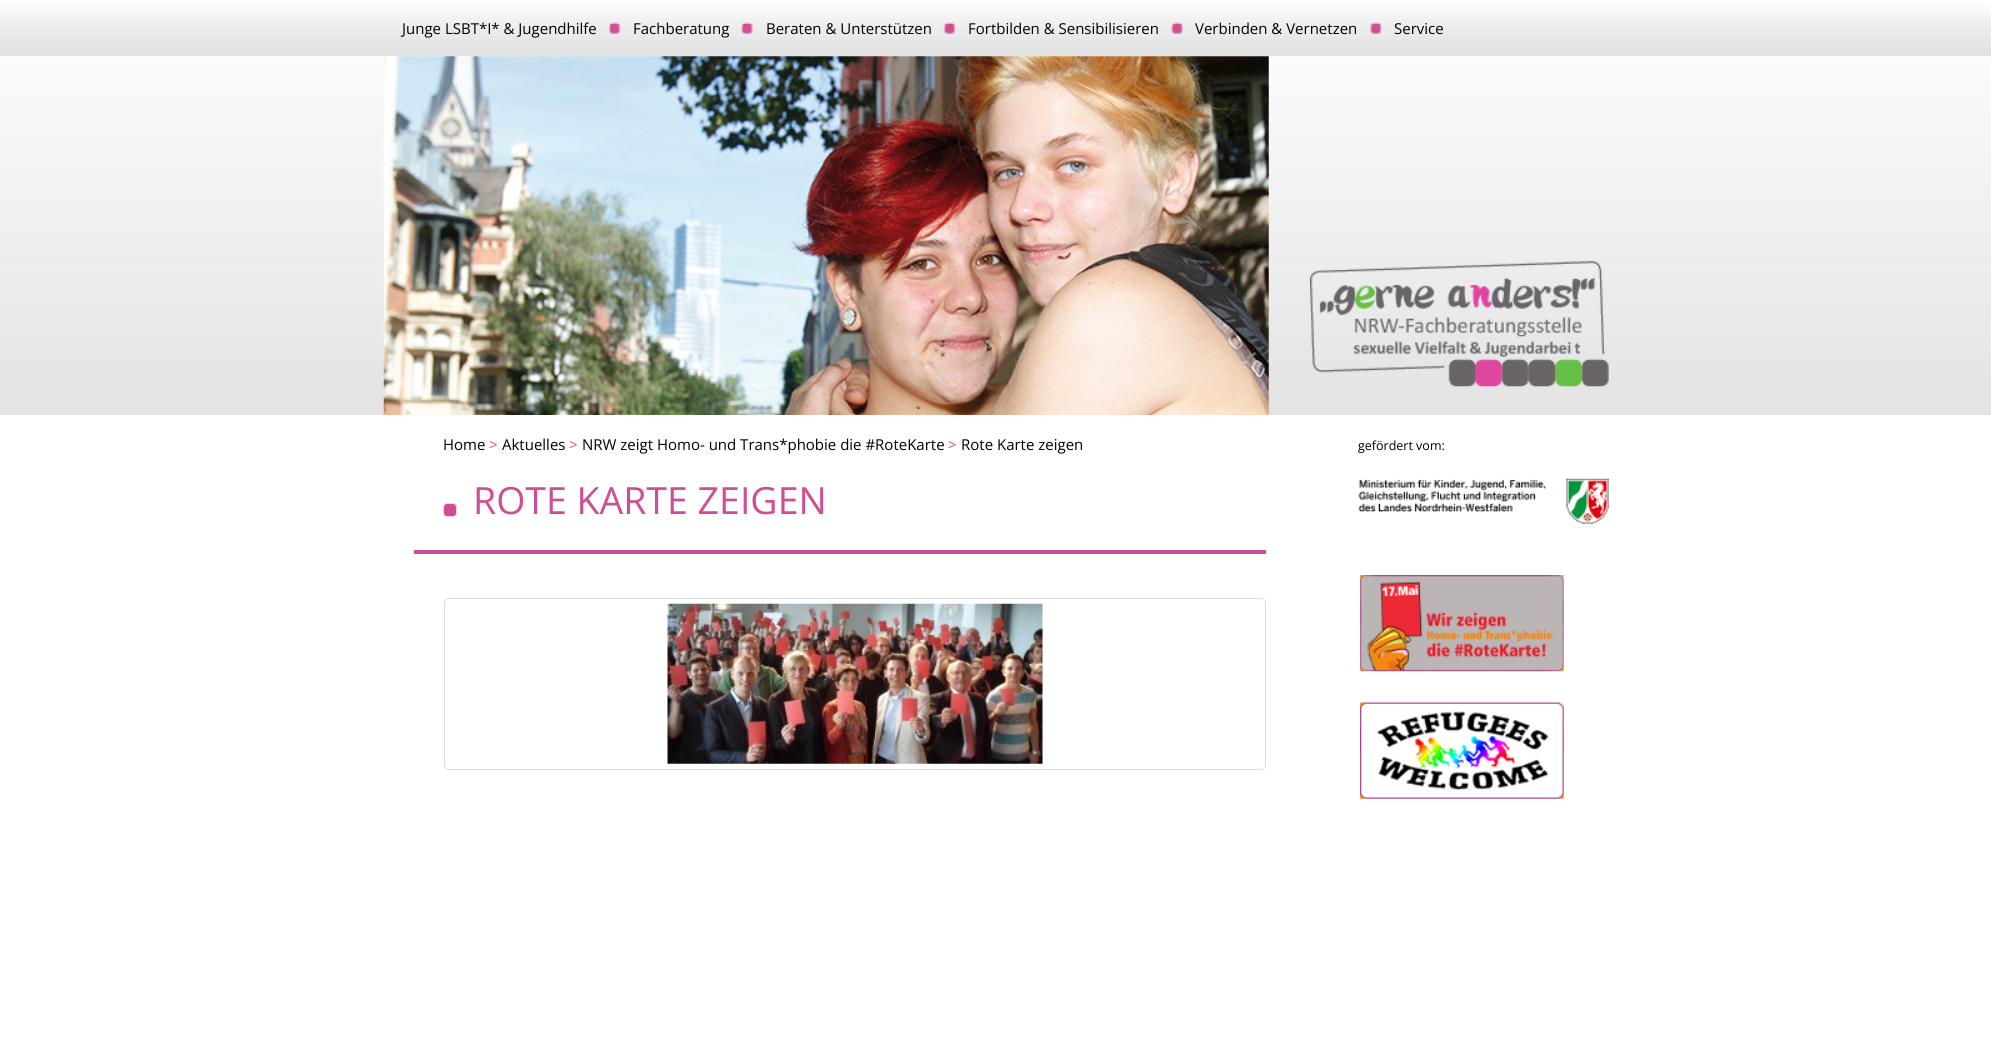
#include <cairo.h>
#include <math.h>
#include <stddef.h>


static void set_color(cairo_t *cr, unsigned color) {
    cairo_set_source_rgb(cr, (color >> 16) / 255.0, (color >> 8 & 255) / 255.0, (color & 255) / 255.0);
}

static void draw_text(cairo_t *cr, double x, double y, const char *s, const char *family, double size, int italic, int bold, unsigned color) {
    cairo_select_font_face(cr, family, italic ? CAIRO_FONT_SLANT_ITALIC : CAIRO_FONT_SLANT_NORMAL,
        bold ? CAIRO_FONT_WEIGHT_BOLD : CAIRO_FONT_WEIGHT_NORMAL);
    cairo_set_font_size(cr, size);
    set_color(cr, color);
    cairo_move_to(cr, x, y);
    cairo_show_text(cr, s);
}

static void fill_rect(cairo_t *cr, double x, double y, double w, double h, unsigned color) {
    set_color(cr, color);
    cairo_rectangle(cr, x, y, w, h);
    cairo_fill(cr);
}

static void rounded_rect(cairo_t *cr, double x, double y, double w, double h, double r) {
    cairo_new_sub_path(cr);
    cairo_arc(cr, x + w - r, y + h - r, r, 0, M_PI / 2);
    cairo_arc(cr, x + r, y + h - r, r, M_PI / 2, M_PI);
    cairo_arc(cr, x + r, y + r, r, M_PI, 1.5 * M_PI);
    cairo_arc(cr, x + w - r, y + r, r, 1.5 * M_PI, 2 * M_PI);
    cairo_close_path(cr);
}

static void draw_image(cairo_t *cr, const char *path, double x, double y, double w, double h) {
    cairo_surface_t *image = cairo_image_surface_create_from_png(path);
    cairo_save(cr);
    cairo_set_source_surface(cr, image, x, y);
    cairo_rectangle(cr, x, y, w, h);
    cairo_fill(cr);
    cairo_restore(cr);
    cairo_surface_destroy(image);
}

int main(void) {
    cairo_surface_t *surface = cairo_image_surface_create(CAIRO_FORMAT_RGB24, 1991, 1063);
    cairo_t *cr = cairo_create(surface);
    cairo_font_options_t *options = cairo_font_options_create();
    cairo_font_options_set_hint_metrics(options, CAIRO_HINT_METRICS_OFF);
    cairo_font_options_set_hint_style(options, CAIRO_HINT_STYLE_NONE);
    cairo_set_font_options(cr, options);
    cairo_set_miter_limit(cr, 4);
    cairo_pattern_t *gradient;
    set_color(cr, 0xFFFFFF);
    cairo_paint(cr);
    gradient = cairo_pattern_create_linear(996, 0, 996, 415);
    cairo_pattern_add_color_stop_rgba(gradient, 0, 1, 1, 1, 1);
    cairo_pattern_add_color_stop_rgba(gradient, 1, 0.89, 0.89, 0.89, 1);
    cairo_set_source(cr, gradient);
    cairo_pattern_destroy(gradient);
    cairo_rectangle(cr, 0, 37, 1991, 378);
    cairo_fill(cr);
    gradient = cairo_pattern_create_linear(996, 0, 996, 56);
    cairo_pattern_add_color_stop_rgba(gradient, 0, 1, 1, 1, 1);
    cairo_pattern_add_color_stop_rgba(gradient, 1, 0.827, 0.827, 0.827, 0.65);
    cairo_set_source(cr, gradient);
    cairo_pattern_destroy(gradient);
    cairo_rectangle(cr, 0, 4, 1991, 52);
    cairo_fill(cr);
    draw_text(cr, 402, 34, "Junge LSBT*I* & Jugendhilfe", "Open Sans", 15, 0, 0, 0x000000);
    draw_image(cr, "assets/img1.png", 609, 22, 12, 12);
    draw_text(cr, 633, 34, "Fachberatung", "Open Sans", 15, 0, 0, 0x000000);
    draw_image(cr, "assets/img2.png", 740, 22, 13, 12);
    draw_text(cr, 766, 34, "Beraten & Unterstützen", "Open Sans", 15, 0, 0, 0x000000);
    draw_image(cr, "assets/img3.png", 943, 22, 13, 12);
    draw_text(cr, 968, 34, "Fortbilden & Sensibilisieren", "Open Sans", 15, 0, 0, 0x000000);
    draw_image(cr, "assets/img4.png", 1170, 22, 13, 12);
    draw_text(cr, 1195, 34, "Verbinden & Vernetzen", "Open Sans", 15, 0, 0, 0x000000);
    draw_image(cr, "assets/img5.png", 1369, 22, 13, 12);
    draw_text(cr, 1394, 34, "Service", "Open Sans", 15, 0, 0, 0x000000);
    draw_image(cr, "assets/img6.png", 383, 56, 886, 359);
    draw_image(cr, "assets/img7.png", 1310, 261, 299, 126);
    draw_text(cr, 443, 450, "Home", "Open Sans", 15, 0, 0, 0x000000);
    draw_text(cr, 489, 450, ">", "Open Sans", 15, 0, 0, 0xD04D93);
    draw_text(cr, 502, 450, "Aktuelles", "Open Sans", 15, 0, 0, 0x000000);
    draw_text(cr, 569, 450, ">", "Open Sans", 15, 0, 0, 0xD04D93);
    draw_text(cr, 582, 450, "NRW zeigt Homo- und Trans*phobie die #RoteKarte", "Open Sans", 15, 0, 0, 0x000000);
    draw_text(cr, 948, 450, ">", "Open Sans", 15, 0, 0, 0xD04D93);
    draw_text(cr, 961, 450, "Rote Karte zeigen", "Open Sans", 15, 0, 0, 0x000000);
    draw_image(cr, "assets/img8.png", 1358, 478, 251, 46);
    draw_text(cr, 1358, 450, "gefördert vom:", "Open Sans", 12.5, 0, 0, 0x000000);
    fill_rect(cr, 414, 550, 852, 4, 0xD04D93);
    draw_image(cr, "assets/img9.png", 443, 503, 14, 14);
    draw_text(cr, 473, 514, "ROTE KARTE ZEIGEN", "Open Sans", 37.5, 0, 0, 0xD04D93);
    draw_image(cr, "assets/img10.png", 1360, 575, 204, 97);
    draw_image(cr, "assets/img11.png", 1360, 702, 204, 97);
    rounded_rect(cr, 444.5, 598.5, 821, 171, 4.5);
    set_color(cr, 0xDDDDDD);
    cairo_set_line_width(cr, 1);
    cairo_stroke(cr);
    draw_image(cr, "assets/img12.png", 667, 603, 376, 161);
    cairo_surface_write_to_png(surface, "output.png");
    cairo_font_options_destroy(options);
    cairo_destroy(cr);
    cairo_surface_destroy(surface);
    return 0;
}
